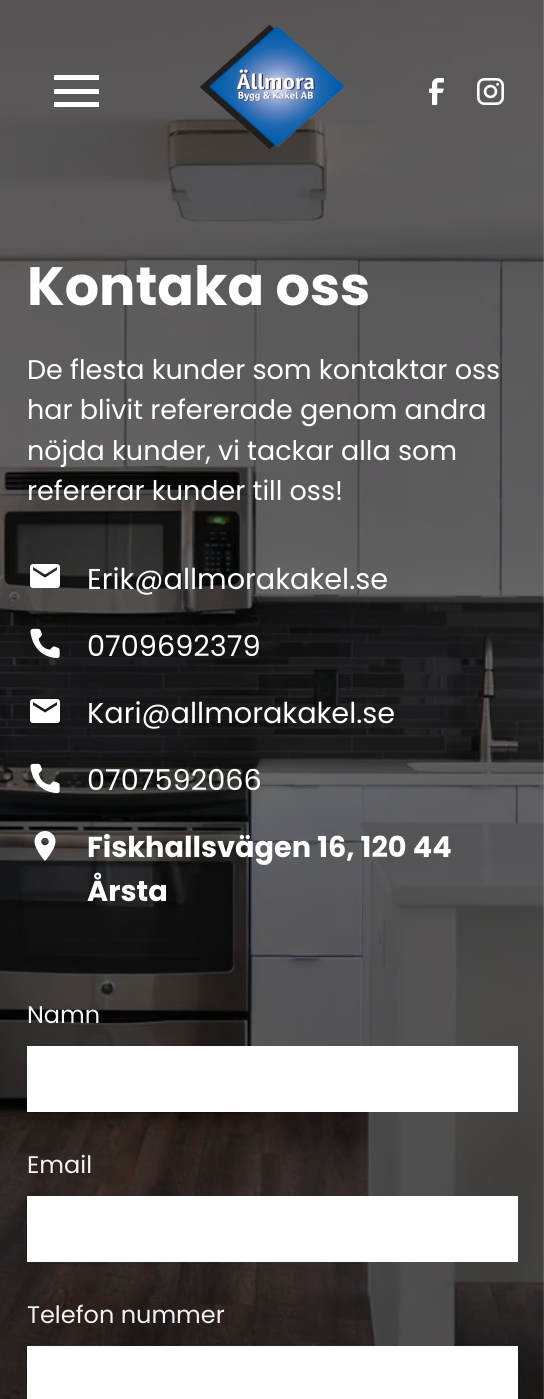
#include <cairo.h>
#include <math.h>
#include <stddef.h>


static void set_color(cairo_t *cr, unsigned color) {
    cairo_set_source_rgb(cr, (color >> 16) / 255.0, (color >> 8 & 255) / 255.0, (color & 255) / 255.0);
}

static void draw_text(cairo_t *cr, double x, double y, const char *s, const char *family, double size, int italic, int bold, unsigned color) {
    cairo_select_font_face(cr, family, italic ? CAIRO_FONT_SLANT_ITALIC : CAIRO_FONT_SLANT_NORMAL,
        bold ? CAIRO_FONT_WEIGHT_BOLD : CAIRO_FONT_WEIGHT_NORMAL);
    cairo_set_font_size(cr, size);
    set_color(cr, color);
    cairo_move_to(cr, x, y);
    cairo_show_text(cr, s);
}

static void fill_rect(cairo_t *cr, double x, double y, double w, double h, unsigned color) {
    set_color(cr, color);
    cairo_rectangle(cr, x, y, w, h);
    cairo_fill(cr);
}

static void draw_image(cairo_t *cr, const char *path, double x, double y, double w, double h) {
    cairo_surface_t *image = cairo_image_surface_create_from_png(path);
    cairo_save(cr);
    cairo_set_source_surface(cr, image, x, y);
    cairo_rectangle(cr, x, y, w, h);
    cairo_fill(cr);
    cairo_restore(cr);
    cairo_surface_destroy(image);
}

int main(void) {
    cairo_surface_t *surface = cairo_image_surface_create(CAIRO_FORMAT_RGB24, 544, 1399);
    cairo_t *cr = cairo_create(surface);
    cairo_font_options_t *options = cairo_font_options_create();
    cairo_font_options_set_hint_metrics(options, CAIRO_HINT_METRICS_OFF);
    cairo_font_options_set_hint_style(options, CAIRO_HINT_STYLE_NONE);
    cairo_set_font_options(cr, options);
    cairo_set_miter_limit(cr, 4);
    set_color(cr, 0xFFFFFF);
    cairo_paint(cr);
    draw_image(cr, "assets/img1.png", 0, 0, 544, 1399);
    fill_rect(cr, 54, 75, 45, 5, 0xFFFFFF);
    fill_rect(cr, 54, 89, 45, 5, 0xFFFFFF);
    fill_rect(cr, 54, 102, 45, 5, 0xFFFFFF);
    draw_image(cr, "assets/img2.png", 200, 24, 146, 126);
    draw_image(cr, "assets/img3.png", 429, 78, 15, 27);
    draw_image(cr, "assets/img4.png", 477, 78, 27, 27);
    draw_text(cr, 27, 305, "Kontaka oss", "Poppins", 54, 0, 1, 0xFFFFFF);
    draw_text(cr, 27, 379, "De flesta kunder som kontaktar oss", "Poppins", 27, 0, 0, 0xFFFFFF);
    draw_text(cr, 27, 419, "har blivit refererade genom andra", "Poppins", 27, 0, 0, 0xFFFFFF);
    draw_text(cr, 27, 460, "nöjda kunder, vi tackar alla som", "Poppins", 27, 0, 0, 0xFFFFFF);
    draw_text(cr, 27, 500, "refererar kunder till oss!", "Poppins", 27, 0, 0, 0xFFFFFF);
    draw_image(cr, "assets/img5.png", 30, 564, 30, 24);
    draw_text(cr, 87, 589, "Erik@allmorakakel.se", "Poppins", 28.75, 0, 0, 0xFFFFFF);
    draw_image(cr, "assets/img6.png", 30, 628, 30, 31);
    draw_text(cr, 87, 656, "0709692379", "Poppins", 28.75, 0, 0, 0xFFFFFF);
    draw_image(cr, "assets/img7.png", 30, 699, 30, 24);
    draw_text(cr, 87, 723, "Kari@allmorakakel.se", "Poppins", 28.75, 0, 0, 0xFFFFFF);
    draw_image(cr, "assets/img8.png", 30, 763, 30, 31);
    draw_text(cr, 87, 790, "0707592066", "Poppins", 28.75, 0, 0, 0xFFFFFF);
    draw_image(cr, "assets/img9.png", 34, 831, 22, 30);
    draw_text(cr, 87, 857, "Fiskhallsvägen 16, 120 44", "Poppins", 28.75, 0, 1, 0xFFFFFF);
    draw_text(cr, 87, 901, "Årsta", "Poppins", 28.75, 0, 1, 0xFFFFFF);
    draw_text(cr, 27, 1023, "Namn", "Poppins", 24, 0, 0, 0xF4F4F4);
    fill_rect(cr, 27, 1046, 491, 66, 0xFFFFFF);
    draw_text(cr, 27, 1173, "Email", "Poppins", 24, 0, 0, 0xF4F4F4);
    fill_rect(cr, 27, 1196, 491, 66, 0xFFFFFF);
    draw_text(cr, 27, 1323, "Telefon nummer", "Poppins", 24, 0, 0, 0xF4F4F4);
    fill_rect(cr, 27, 1346, 491, 53, 0xFFFFFF);
    cairo_surface_write_to_png(surface, "output.png");
    cairo_font_options_destroy(options);
    cairo_destroy(cr);
    cairo_surface_destroy(surface);
    return 0;
}
